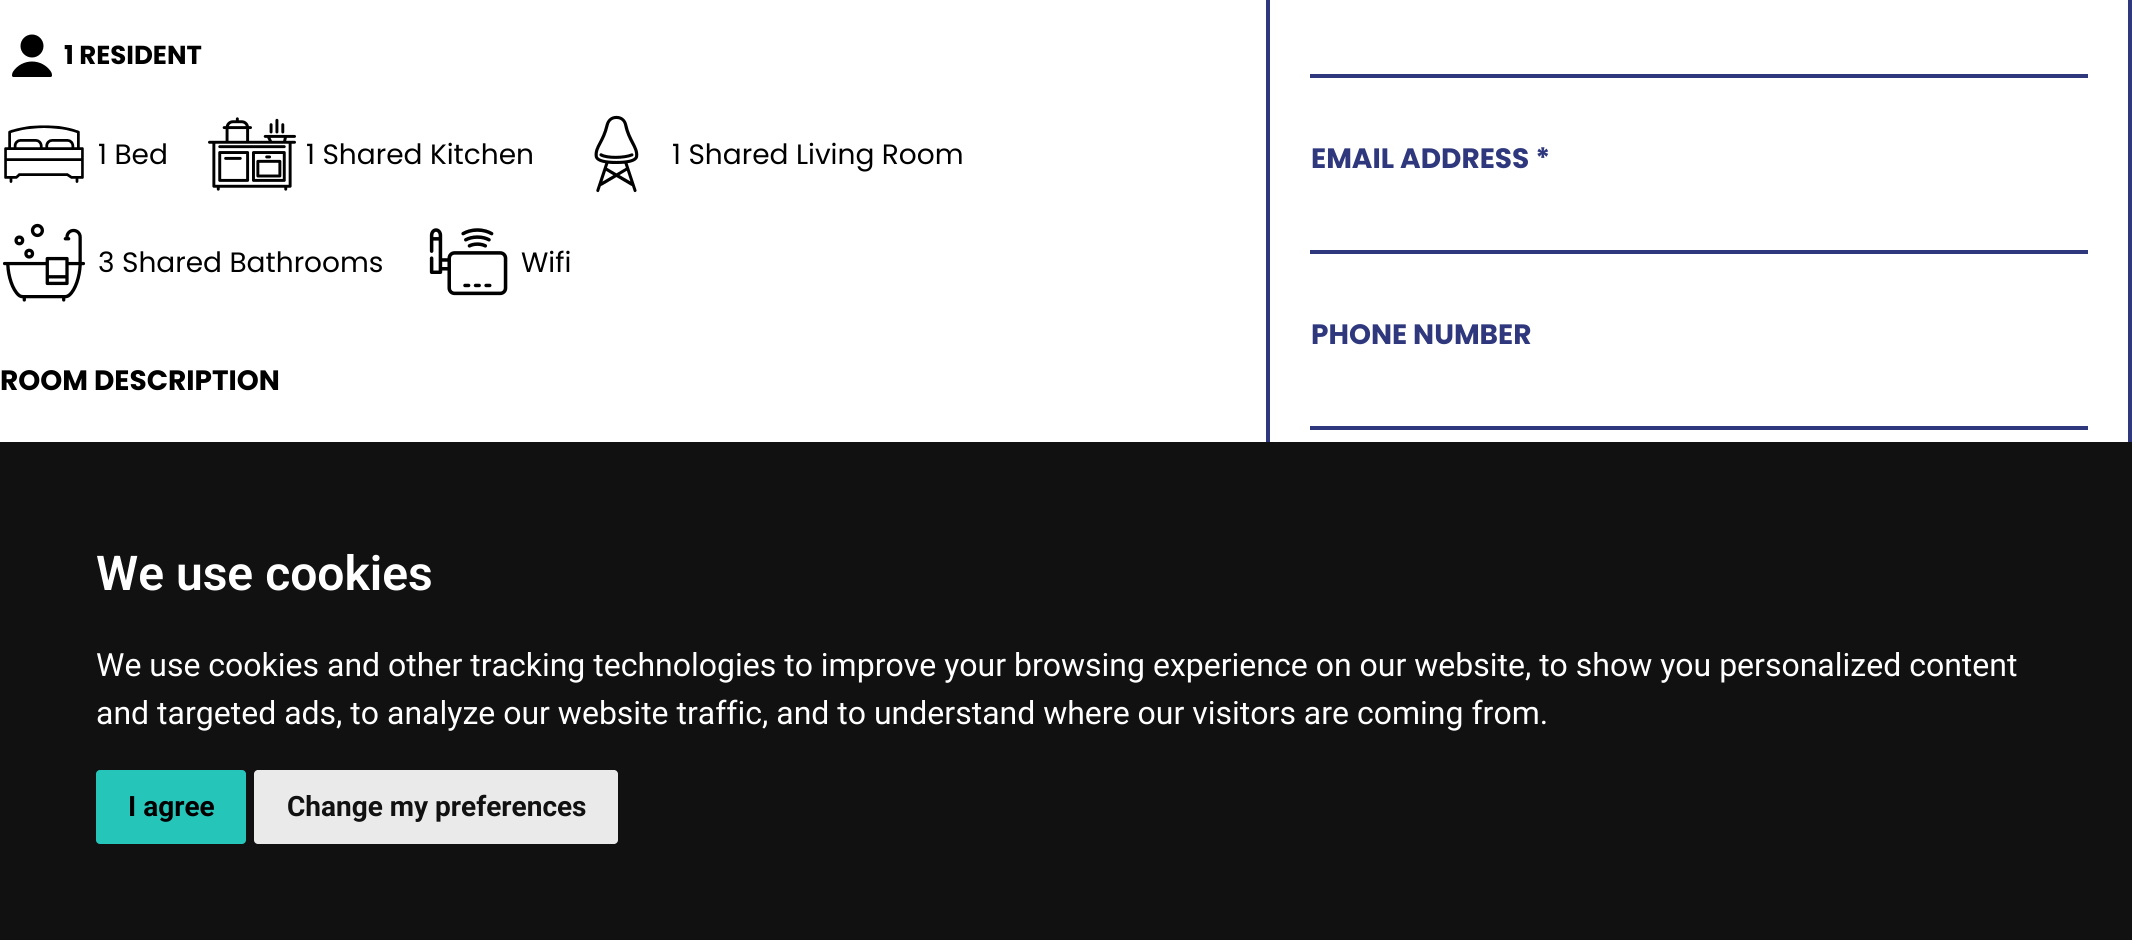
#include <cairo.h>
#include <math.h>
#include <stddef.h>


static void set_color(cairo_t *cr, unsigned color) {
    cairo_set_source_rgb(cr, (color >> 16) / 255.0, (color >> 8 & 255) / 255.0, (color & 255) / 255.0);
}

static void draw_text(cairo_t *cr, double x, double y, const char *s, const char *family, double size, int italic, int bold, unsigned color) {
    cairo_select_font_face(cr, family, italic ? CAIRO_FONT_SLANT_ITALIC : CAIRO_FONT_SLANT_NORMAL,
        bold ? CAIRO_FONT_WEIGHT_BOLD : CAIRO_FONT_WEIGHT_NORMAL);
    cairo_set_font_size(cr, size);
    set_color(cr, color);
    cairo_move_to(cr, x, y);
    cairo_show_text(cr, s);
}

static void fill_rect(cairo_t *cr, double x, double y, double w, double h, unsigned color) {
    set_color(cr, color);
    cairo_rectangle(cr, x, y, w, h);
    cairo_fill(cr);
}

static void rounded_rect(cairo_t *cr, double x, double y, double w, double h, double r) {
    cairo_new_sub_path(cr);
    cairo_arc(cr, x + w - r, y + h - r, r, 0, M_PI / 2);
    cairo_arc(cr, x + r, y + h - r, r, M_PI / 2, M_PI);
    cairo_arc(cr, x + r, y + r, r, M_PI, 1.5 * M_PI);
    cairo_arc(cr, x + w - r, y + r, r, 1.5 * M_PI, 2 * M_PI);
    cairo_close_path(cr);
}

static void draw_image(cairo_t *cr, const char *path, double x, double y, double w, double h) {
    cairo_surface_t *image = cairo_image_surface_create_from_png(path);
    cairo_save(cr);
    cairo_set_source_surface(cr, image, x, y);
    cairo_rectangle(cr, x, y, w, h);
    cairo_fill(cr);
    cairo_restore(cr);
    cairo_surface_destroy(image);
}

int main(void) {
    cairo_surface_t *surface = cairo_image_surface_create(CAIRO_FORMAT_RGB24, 2132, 940);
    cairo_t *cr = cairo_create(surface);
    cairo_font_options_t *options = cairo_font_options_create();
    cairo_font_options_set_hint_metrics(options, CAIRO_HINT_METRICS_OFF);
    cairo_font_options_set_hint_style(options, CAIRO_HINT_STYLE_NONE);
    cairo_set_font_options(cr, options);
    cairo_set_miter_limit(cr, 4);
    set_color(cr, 0xFFFFFF);
    cairo_paint(cr);
    draw_image(cr, "assets/img1.png", 12, 34, 40, 43);
    draw_text(cr, 64, 64, "1 RESIDENT", "Poppins", 26, 0, 1, 0x000000);
    draw_image(cr, "assets/img2.png", 4, 125, 80, 58);
    draw_text(cr, 98, 164, "1 Bed", "Poppins", 28, 0, 0, 0x000000);
    draw_image(cr, "assets/img3.png", 208, 117, 88, 74);
    draw_text(cr, 306, 164, "1 Shared Kitchen", "Poppins", 28, 0, 0, 0x000000);
    draw_image(cr, "assets/img4.png", 594, 115, 45, 78);
    draw_text(cr, 672, 164, "1 Shared Living Room", "Poppins", 28, 0, 0, 0x000000);
    draw_image(cr, "assets/img5.png", 2, 223, 84, 79);
    draw_text(cr, 98, 272, "3 Shared Bathrooms", "Poppins", 28, 0, 0, 0x000000);
    draw_image(cr, "assets/img6.png", 429, 228, 79, 68);
    draw_text(cr, 521, 272, "Wifi", "Poppins", 28, 0, 0, 0x000000);
    draw_text(cr, 0, 390, "ROOM DESCRIPTION", "Poppins", 28, 0, 1, 0x000000);
    cairo_rectangle(cr, 1268, -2, 862, 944);
    set_color(cr, 0x2F387D);
    cairo_set_line_width(cr, 4);
    cairo_stroke(cr);
    fill_rect(cr, 1310, 74, 778, 4, 0x2F387D);
    draw_text(cr, 1311, 168, "EMAIL ADDRESS *", "Poppins", 28, 0, 1, 0x2F387D);
    fill_rect(cr, 1310, 250, 778, 4, 0x2F387D);
    draw_text(cr, 1311, 344, "PHONE NUMBER", "Poppins", 28, 0, 1, 0x2F387D);
    fill_rect(cr, 1310, 426, 778, 4, 0x2F387D);
    fill_rect(cr, 0, 442, 2132, 498, 0x111111);
    draw_text(cr, 96, 590, "We use cookies", "Roboto SemiBold", 48, 0, 0, 0xFFFFFF);
    draw_text(cr, 96, 676, "We use cookies and other tracking technologies to improve your browsing experience on our website, to show you personalized content", "Roboto", 32, 0, 0, 0xFFFFFF);
    draw_text(cr, 96, 724, "and targeted ads, to analyze our website traffic, and to understand where our visitors are coming from.", "Roboto", 32, 0, 0, 0xFFFFFF);
    set_color(cr, 0x25C5BA);
    rounded_rect(cr, 96, 770, 150, 74, 4);
    cairo_fill(cr);
    draw_text(cr, 128, 816, "I agree", "Roboto", 28, 0, 1, 0x000000);
    set_color(cr, 0xEAEAEA);
    rounded_rect(cr, 254, 770, 364, 74, 4);
    cairo_fill(cr);
    draw_text(cr, 287, 816, "Change my preferences", "Roboto", 28, 0, 1, 0x111111);
    cairo_surface_write_to_png(surface, "output.png");
    cairo_font_options_destroy(options);
    cairo_destroy(cr);
    cairo_surface_destroy(surface);
    return 0;
}
